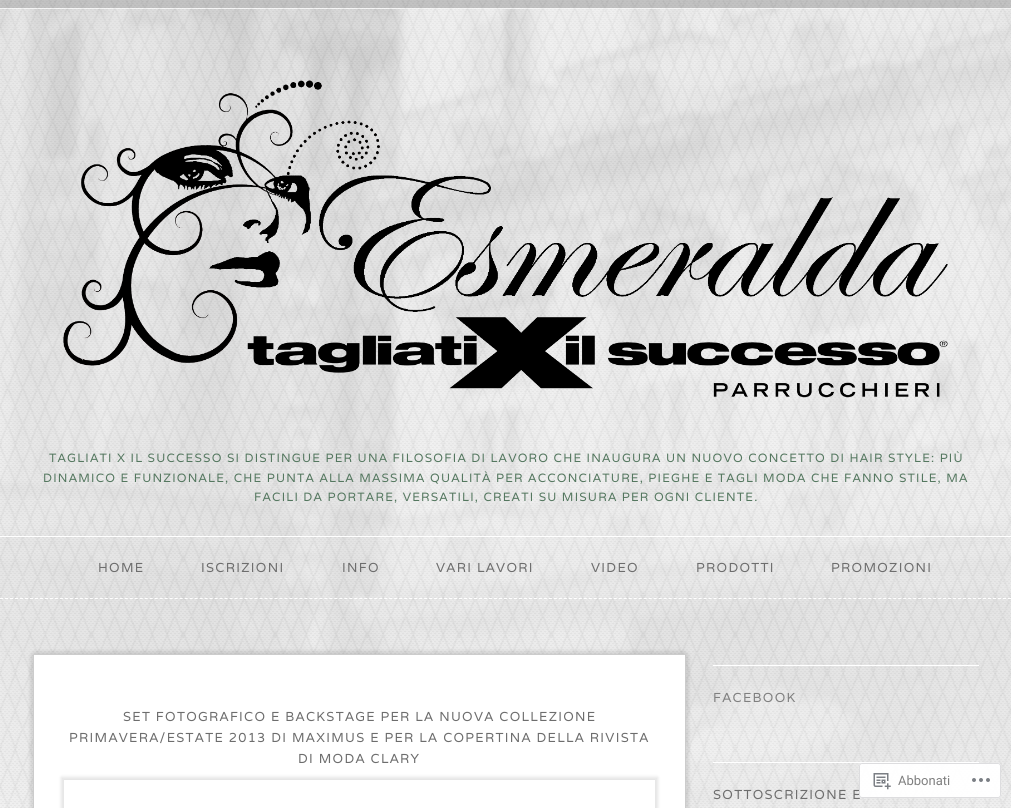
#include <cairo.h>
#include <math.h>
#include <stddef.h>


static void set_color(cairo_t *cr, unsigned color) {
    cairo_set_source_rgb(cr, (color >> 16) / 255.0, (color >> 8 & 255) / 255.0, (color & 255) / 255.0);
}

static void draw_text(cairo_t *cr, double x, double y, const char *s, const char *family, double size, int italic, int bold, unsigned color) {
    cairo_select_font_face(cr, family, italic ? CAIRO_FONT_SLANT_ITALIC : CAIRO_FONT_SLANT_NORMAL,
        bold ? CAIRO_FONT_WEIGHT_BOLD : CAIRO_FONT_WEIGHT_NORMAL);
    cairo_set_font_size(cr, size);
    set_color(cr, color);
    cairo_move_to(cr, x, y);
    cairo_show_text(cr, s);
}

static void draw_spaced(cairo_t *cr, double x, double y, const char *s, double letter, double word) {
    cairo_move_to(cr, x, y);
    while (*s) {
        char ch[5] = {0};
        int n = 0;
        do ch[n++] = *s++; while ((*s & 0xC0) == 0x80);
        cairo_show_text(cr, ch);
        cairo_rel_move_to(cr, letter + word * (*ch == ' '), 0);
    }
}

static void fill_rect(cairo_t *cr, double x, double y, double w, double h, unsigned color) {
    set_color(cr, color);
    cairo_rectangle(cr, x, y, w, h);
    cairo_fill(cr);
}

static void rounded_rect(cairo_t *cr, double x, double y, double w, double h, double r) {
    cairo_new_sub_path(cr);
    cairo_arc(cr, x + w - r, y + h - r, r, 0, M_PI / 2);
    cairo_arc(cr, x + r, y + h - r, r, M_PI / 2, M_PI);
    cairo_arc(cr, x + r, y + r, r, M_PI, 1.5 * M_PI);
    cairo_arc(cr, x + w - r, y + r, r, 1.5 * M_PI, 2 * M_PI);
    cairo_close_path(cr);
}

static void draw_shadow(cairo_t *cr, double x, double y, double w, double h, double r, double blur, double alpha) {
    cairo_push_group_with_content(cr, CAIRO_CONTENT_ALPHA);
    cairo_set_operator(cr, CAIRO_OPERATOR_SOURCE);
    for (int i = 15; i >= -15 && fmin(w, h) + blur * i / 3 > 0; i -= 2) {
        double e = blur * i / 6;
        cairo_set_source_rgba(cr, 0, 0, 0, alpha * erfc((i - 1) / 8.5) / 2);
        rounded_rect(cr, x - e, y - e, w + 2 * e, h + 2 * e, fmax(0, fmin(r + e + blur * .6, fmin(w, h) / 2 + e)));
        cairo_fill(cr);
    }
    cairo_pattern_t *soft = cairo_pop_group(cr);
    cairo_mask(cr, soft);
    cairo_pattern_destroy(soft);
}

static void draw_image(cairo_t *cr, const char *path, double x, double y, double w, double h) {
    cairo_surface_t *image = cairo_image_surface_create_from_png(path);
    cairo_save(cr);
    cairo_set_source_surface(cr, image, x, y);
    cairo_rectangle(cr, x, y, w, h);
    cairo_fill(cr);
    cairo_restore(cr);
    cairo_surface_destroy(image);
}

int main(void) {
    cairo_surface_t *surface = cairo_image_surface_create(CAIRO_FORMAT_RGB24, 1011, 808);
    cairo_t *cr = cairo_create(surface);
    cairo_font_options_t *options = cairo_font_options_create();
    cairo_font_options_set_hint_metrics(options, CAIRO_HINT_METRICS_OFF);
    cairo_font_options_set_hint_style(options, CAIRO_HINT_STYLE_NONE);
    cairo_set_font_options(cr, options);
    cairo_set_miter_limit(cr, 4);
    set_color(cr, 0xD3D3D3);
    cairo_paint(cr);
    draw_image(cr, "assets/img1.png", 0, 0, 1011, 8);
    cairo_set_source_rgba(cr, 0.11, 0.11, 0.11, 0.05);
    cairo_rectangle(cr, 0, 0, 1011, 8);
    cairo_fill(cr);
    fill_rect(cr, 0, 8, 1011, 800, 0xFFFFFF);
    draw_image(cr, "assets/img2.png", 0, 8, 1011, 800);
    draw_image(cr, "assets/img3.png", 63, 80, 885, 318);
    cairo_select_font_face(cr, "Varela", CAIRO_FONT_SLANT_NORMAL, CAIRO_FONT_WEIGHT_NORMAL);
    cairo_set_font_size(cr, 12);
    set_color(cr, 0x54775F);
    draw_spaced(cr, 49, 462, "TAGLIATI X IL SUCCESSO SI DISTINGUE PER UNA FILOSOFIA DI LAVORO CHE INAUGURA UN NUOVO CONCETTO DI HAIR STYLE: PIÙ", 1.2, 0);
    draw_spaced(cr, 43, 482, "DINAMICO E FUNZIONALE, CHE PUNTA ALLA MASSIMA QUALITÀ PER ACCONCIATURE, PIEGHE E TAGLI MODA CHE FANNO STILE, MA", 1.2, 0);
    draw_spaced(cr, 254, 501, "FACILI DA PORTARE, VERSATILI, CREATI SU MISURA PER OGNI CLIENTE.", 1.2, 0);
    fill_rect(cr, 0, 536, 1011, 1, 0xFFFFFF);
    cairo_new_path(cr);
    cairo_move_to(cr, 0, 598.5);
    cairo_line_to(cr, 1011, 598.5);
    cairo_set_line_width(cr, 1);
    cairo_set_dash(cr, (double[]){3, 1.99}, 2, 0);
    cairo_stroke(cr);
    cairo_set_font_size(cr, 13);
    set_color(cr, 0x6D6D6D);
    draw_spaced(cr, 98, 572, "HOME", 1.3, 0);
    draw_spaced(cr, 201, 572, "ISCRIZIONI", 1.3, 0);
    draw_spaced(cr, 342, 572, "INFO", 1.3, 0);
    draw_spaced(cr, 436, 572, "VARI LAVORI", 1.3, 0);
    draw_spaced(cr, 591, 572, "VIDEO", 1.3, 0);
    draw_spaced(cr, 696, 572, "PRODOTTI", 1.3, 0);
    draw_spaced(cr, 831, 572, "PROMOZIONI", 1.3, 0);
    set_color(cr, 0x000000);
    draw_shadow(cr, 30, 651, 659, 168, 6, 1.5, 0.1);
    rounded_rect(cr, 33.5, 654.5, 652, 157, 2.5);
    set_color(cr, 0xCCCCCC);
    cairo_set_dash(cr, NULL, 0, 0);
    cairo_stroke(cr);
    fill_rect(cr, 34, 655, 651, 153, 0xFFFFFF);
    set_color(cr, 0x6D6D6D);
    draw_spaced(cr, 123, 721, "SET FOTOGRAFICO E BACKSTAGE PER LA NUOVA COLLEZIONE", 1.3, 0);
    draw_spaced(cr, 69, 742, "PRIMAVERA/ESTATE 2013 DI MAXIMUS E PER LA COPERTINA DELLA RIVISTA", 1.3, 0);
    draw_spaced(cr, 298, 763, "DI MODA CLARY", 1.3, 0);
    cairo_save(cr);
    cairo_set_fill_rule(cr, CAIRO_FILL_RULE_EVEN_ODD);
    cairo_new_path(cr);
    cairo_move_to(cr, 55, 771);
    cairo_line_to(cr, 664, 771);
    cairo_line_to(cr, 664, 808);
    cairo_line_to(cr, 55, 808);
    cairo_close_path(cr);
    cairo_move_to(cr, 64, 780);
    cairo_line_to(cr, 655, 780);
    cairo_line_to(cr, 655, 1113);
    cairo_line_to(cr, 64, 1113);
    cairo_close_path(cr);
    cairo_clip(cr);
    set_color(cr, 0x000000);
    draw_shadow(cr, 61, 777, 597, 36, 0, 1.5, 0.1);
    cairo_restore(cr);
    fill_rect(cr, 713, 665, 266, 1, 0xFFFFFF);
    set_color(cr, 0x7F7F7F);
    draw_spaced(cr, 713, 702, "FACEBOOK", 1.3, 0);
    fill_rect(cr, 713, 762, 266, 1, 0xFFFFFF);
    set_color(cr, 0x6D6D6D);
    draw_spaced(cr, 713, 799, "SOTTOSCRIZIONE E", 1.3, 0);
    cairo_set_source_rgba(cr, 1, 1, 1, 0.98);
    rounded_rect(cr, 859, 763, 142, 35, 3);
    cairo_fill(cr);
    rounded_rect(cr, 859.5, 763.5, 141, 34, 2.5);
    cairo_set_source_rgba(cr, 0.863, 0.863, 0.871, 0.98);
    cairo_stroke(cr);
    draw_image(cr, "assets/img4.png", 873, 773, 18, 17);
    draw_text(cr, 898, 785, "Abbonati", "Roboto", 13, 0, 0, 0x7F7F7F);
    draw_image(cr, "assets/img5.png", 972, 778, 18, 4);
    cairo_surface_write_to_png(surface, "output.png");
    cairo_font_options_destroy(options);
    cairo_destroy(cr);
    cairo_surface_destroy(surface);
    return 0;
}
